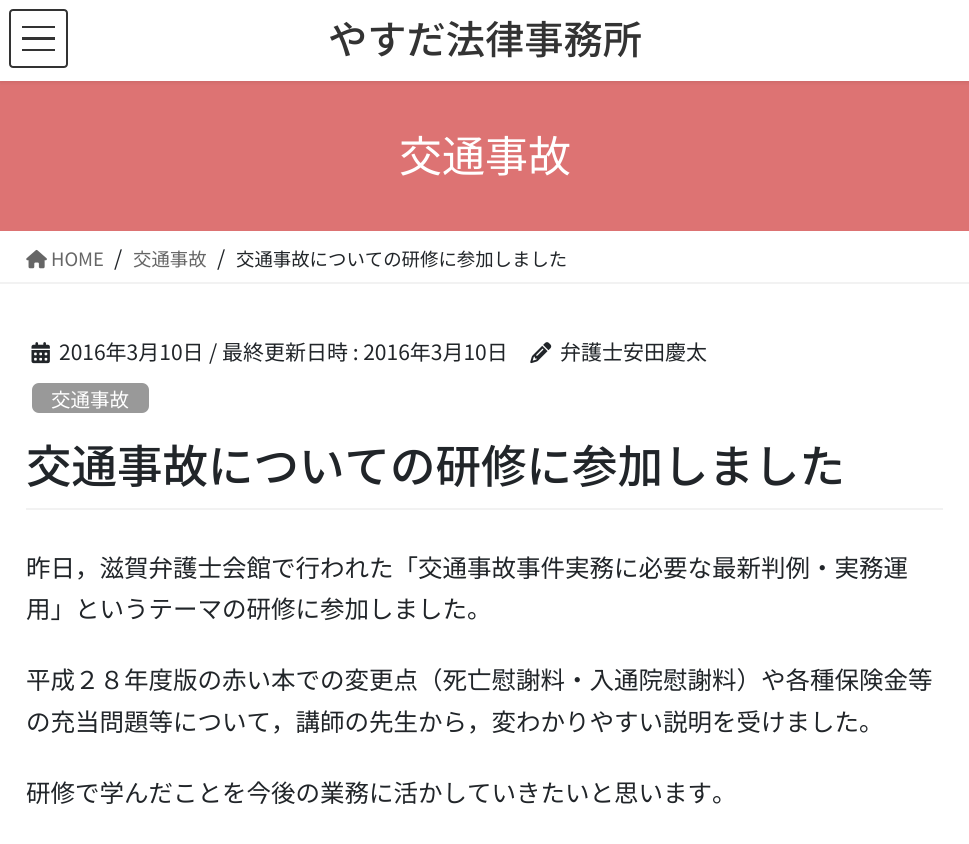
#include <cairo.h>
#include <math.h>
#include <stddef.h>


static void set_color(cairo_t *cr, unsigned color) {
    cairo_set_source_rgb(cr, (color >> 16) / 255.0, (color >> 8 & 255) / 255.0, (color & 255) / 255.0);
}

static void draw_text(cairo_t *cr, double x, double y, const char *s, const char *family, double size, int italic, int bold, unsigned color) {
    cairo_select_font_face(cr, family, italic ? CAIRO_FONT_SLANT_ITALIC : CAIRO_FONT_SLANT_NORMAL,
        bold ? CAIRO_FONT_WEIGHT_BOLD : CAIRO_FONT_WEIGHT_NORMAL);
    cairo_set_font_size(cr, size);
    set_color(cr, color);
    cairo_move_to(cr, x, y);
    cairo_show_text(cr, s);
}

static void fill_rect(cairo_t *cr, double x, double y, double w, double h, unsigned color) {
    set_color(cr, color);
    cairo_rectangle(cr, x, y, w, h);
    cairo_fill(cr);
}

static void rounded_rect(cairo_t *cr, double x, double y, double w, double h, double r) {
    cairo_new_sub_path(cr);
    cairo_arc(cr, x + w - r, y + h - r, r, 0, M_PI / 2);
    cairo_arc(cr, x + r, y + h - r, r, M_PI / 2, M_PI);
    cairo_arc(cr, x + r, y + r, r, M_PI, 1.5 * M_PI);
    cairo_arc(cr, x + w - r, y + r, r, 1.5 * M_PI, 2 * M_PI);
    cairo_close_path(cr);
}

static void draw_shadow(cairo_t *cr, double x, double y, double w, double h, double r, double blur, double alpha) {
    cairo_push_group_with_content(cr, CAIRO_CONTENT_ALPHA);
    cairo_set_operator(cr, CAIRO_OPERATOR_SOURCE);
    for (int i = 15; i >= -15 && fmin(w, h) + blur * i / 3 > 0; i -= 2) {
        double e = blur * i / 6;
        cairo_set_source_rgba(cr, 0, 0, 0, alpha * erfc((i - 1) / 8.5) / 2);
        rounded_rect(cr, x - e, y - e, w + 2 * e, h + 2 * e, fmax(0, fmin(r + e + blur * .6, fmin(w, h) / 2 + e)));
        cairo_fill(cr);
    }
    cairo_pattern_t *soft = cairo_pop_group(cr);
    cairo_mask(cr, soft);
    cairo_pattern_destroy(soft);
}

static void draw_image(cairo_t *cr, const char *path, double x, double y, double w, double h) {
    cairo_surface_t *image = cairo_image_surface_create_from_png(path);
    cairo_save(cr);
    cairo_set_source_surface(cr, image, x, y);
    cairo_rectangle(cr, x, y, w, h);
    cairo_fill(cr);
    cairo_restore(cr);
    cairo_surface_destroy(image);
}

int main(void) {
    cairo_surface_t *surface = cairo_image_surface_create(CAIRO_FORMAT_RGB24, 969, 844);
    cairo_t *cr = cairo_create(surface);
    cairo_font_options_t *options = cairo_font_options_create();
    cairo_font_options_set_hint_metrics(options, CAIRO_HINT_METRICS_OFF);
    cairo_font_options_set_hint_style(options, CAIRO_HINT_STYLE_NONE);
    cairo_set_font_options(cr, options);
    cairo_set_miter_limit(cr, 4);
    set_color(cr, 0xFFFFFF);
    cairo_paint(cr);
    fill_rect(cr, 0, 81, 969, 150, 0xDD7373);
    set_color(cr, 0x000000);
    draw_shadow(cr, 0, 2, 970, 80, 0, 2.5, 0.1);
    fill_rect(cr, 0, 0, 969, 81, 0xFFFFFF);
    fill_rect(cr, 22, 26, 33, 2, 0x333333);
    fill_rect(cr, 22, 37, 33, 3, 0x333333);
    fill_rect(cr, 22, 49, 33, 2, 0x333333);
    rounded_rect(cr, 10, 10, 57, 57, 3);
    cairo_stroke(cr);
    draw_text(cr, 328, 54, "やすだ法律事務所", "Noto Sans JP Medium", 39.25, 0, 0, 0x333333);
    draw_text(cr, 399, 172, "交通事故", "Noto Sans JP", 43, 0, 0, 0xFFFFFF);
    fill_rect(cr, 0, 282, 969, 2, 0xF2F2F2);
    draw_image(cr, "assets/img1.png", 26, 249, 21, 20);
    draw_text(cr, 51, 266, "HOME", "Noto Sans JP", 18.4, 0, 0, 0x666666);
    draw_text(cr, 114, 266, "/", "Noto Sans JP", 21, 0, 0, 0x212529);
    draw_text(cr, 133, 266, "交通事故", "Noto Sans JP", 18.4, 0, 0, 0x666666);
    draw_text(cr, 217, 266, "/", "Noto Sans JP", 21, 0, 0, 0x212529);
    draw_text(cr, 236, 266, "交通事故についての研修に参加しました", "Noto Sans JP", 18.4, 0, 0, 0x212529);
    fill_rect(cr, 26, 508, 917, 2, 0xF2F2F2);
    draw_image(cr, "assets/img2.png", 31, 342, 19, 22);
    draw_text(cr, 59, 360, "2016年3月10日", "Noto Sans JP", 21, 0, 0, 0x212529);
    draw_text(cr, 209, 360, "/ 最終更新日時 : 2016年3月10日", "Noto Sans JP", 21, 0, 0, 0x212529);
    draw_image(cr, "assets/img3.png", 530, 342, 22, 22);
    draw_text(cr, 560, 360, "弁護士安田慶太", "Noto Sans JP", 21, 0, 0, 0x212529);
    set_color(cr, 0x999999);
    rounded_rect(cr, 32, 383, 117, 30, 7);
    cairo_fill(cr);
    draw_text(cr, 51, 407, "交通事故", "Noto Sans JP", 19.5, 0, 0, 0xFFFFFF);
    draw_text(cr, 26, 483, "交通事故についての研修に参加しました", "Noto Sans JP Medium", 45.5, 0, 0, 0x212529);
    draw_text(cr, 26, 577, "昨日，滋賀弁護士会館で行われた「交通事故事件実務に必要な最新判例・実務運", "Noto Sans JP", 24.5, 0, 0, 0x212529);
    draw_text(cr, 26, 618, "用」というテーマの研修に参加しました。", "Noto Sans JP", 24.5, 0, 0, 0x212529);
    draw_text(cr, 26, 689, "平成２８年度版の赤い本での変更点（死亡慰謝料・入通院慰謝料）や各種保険金等", "Noto Sans JP", 24.5, 0, 0, 0x212529);
    draw_text(cr, 26, 731, "の充当問題等について，講師の先生から，変わかりやすい説明を受けました。", "Noto Sans JP", 24.5, 0, 0, 0x212529);
    draw_text(cr, 26, 802, "研修で学んだことを今後の業務に活かしていきたいと思います。", "Noto Sans JP", 24.5, 0, 0, 0x212529);
    cairo_surface_write_to_png(surface, "output.png");
    cairo_font_options_destroy(options);
    cairo_destroy(cr);
    cairo_surface_destroy(surface);
    return 0;
}
